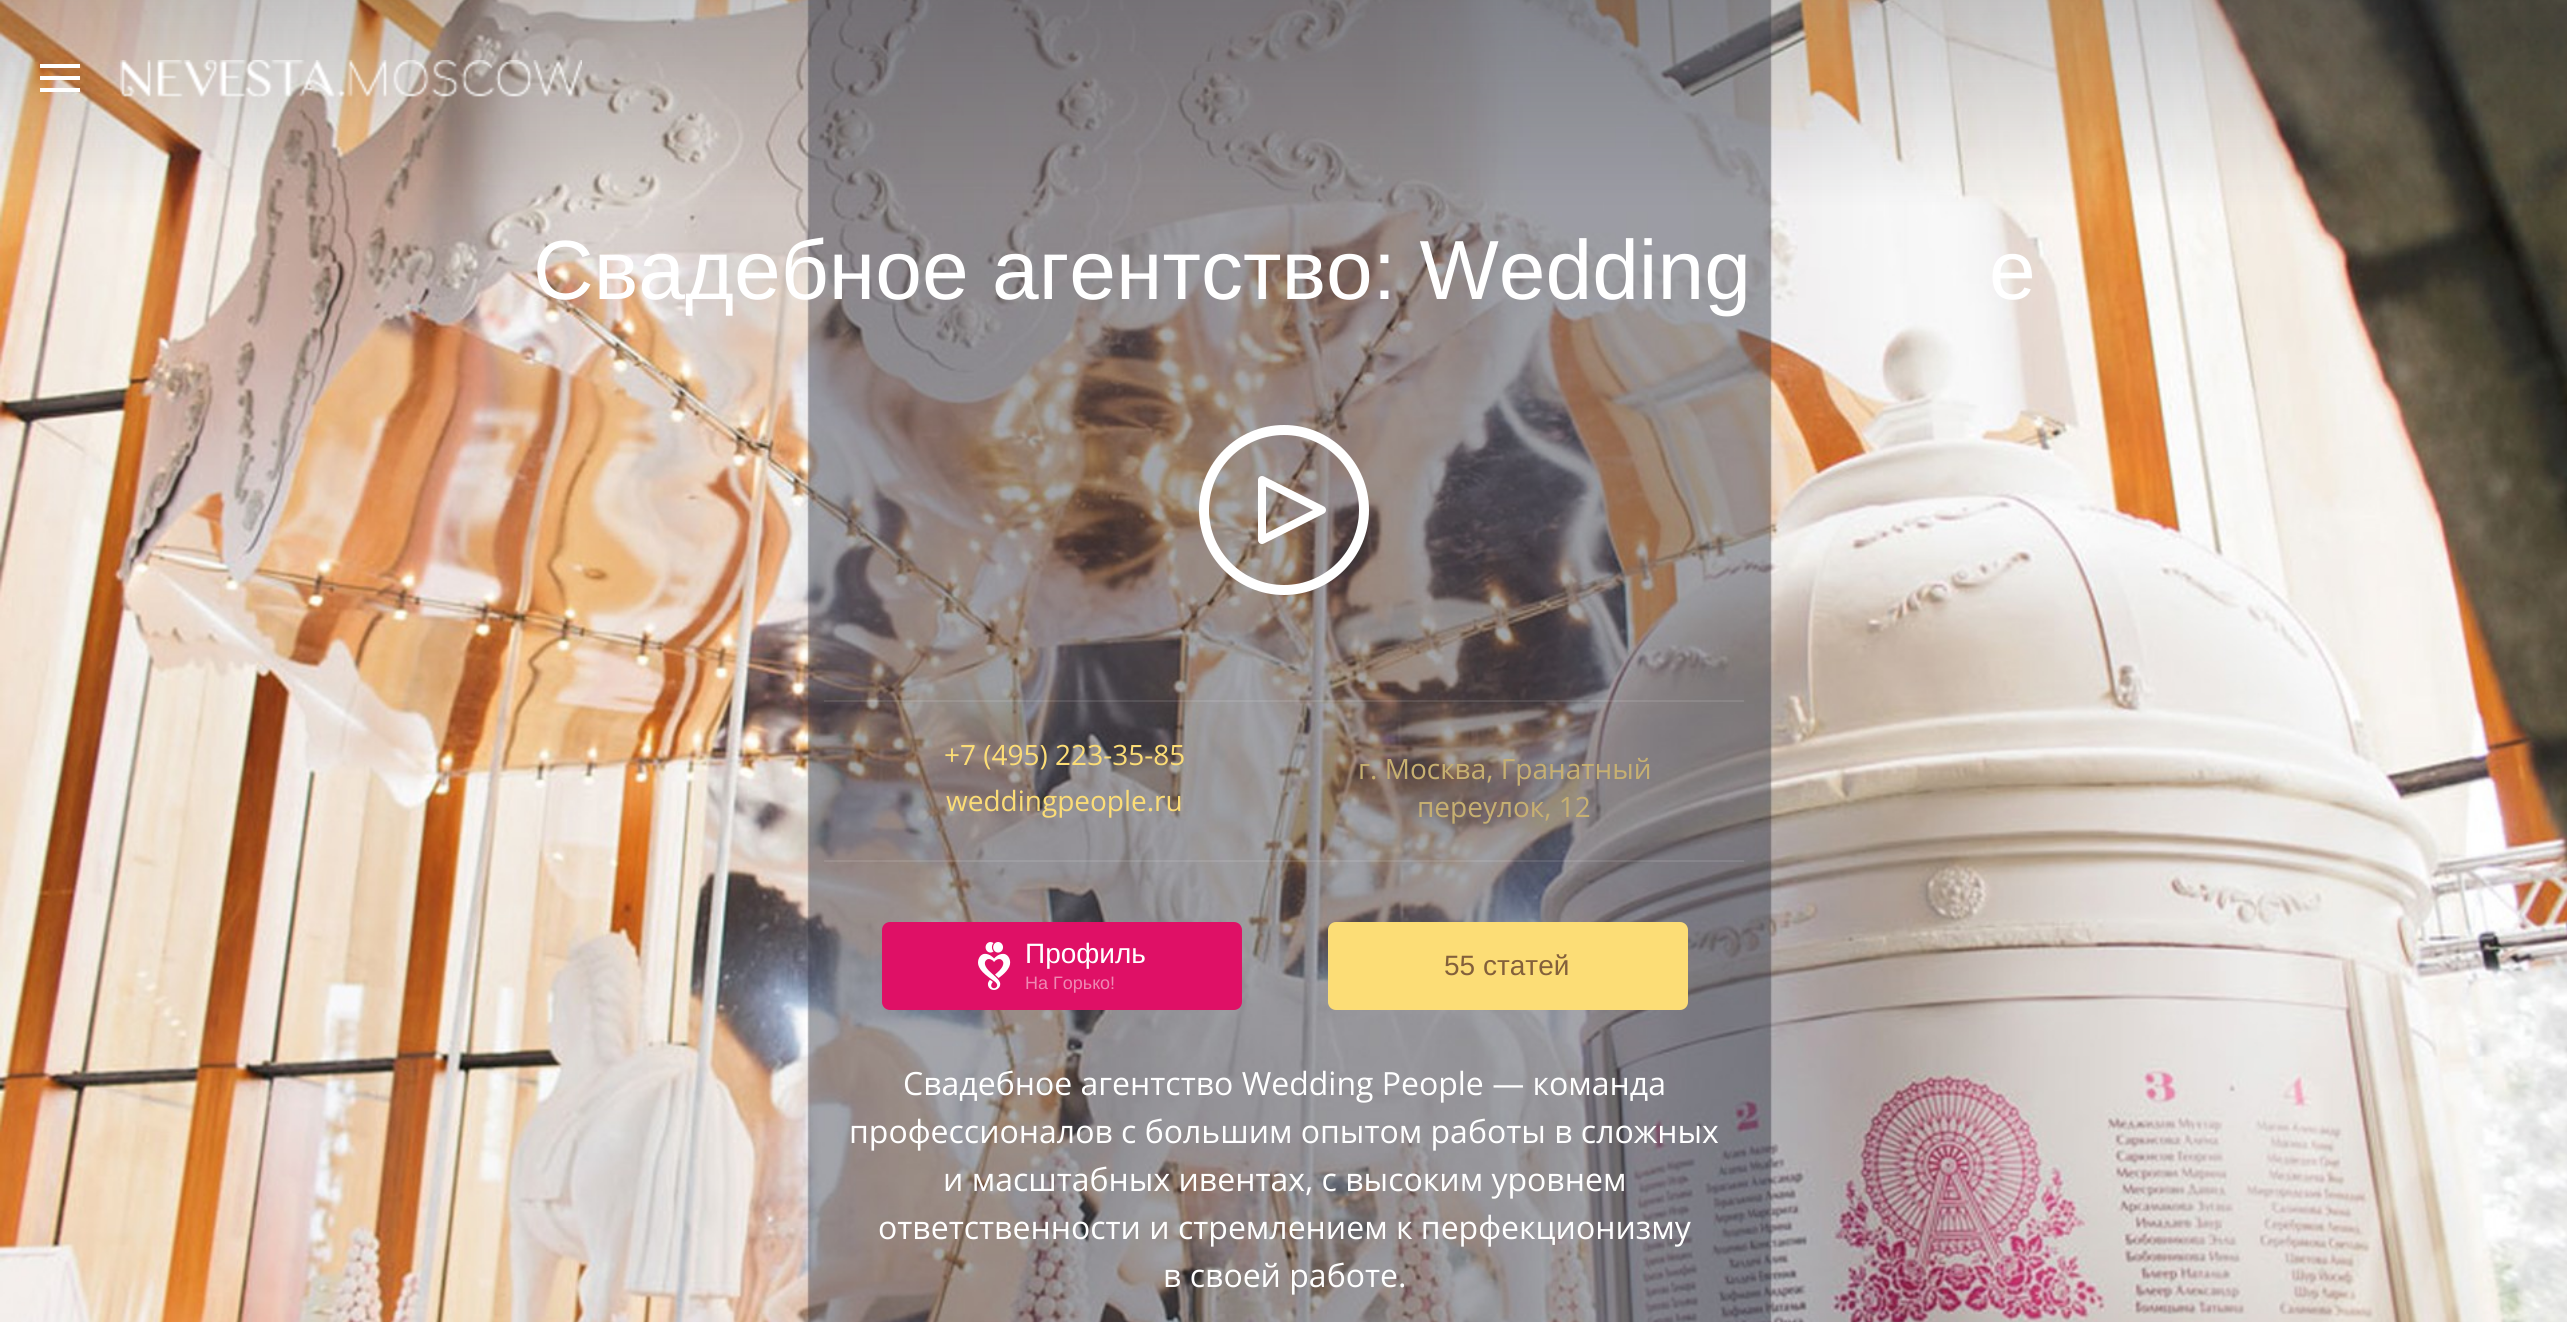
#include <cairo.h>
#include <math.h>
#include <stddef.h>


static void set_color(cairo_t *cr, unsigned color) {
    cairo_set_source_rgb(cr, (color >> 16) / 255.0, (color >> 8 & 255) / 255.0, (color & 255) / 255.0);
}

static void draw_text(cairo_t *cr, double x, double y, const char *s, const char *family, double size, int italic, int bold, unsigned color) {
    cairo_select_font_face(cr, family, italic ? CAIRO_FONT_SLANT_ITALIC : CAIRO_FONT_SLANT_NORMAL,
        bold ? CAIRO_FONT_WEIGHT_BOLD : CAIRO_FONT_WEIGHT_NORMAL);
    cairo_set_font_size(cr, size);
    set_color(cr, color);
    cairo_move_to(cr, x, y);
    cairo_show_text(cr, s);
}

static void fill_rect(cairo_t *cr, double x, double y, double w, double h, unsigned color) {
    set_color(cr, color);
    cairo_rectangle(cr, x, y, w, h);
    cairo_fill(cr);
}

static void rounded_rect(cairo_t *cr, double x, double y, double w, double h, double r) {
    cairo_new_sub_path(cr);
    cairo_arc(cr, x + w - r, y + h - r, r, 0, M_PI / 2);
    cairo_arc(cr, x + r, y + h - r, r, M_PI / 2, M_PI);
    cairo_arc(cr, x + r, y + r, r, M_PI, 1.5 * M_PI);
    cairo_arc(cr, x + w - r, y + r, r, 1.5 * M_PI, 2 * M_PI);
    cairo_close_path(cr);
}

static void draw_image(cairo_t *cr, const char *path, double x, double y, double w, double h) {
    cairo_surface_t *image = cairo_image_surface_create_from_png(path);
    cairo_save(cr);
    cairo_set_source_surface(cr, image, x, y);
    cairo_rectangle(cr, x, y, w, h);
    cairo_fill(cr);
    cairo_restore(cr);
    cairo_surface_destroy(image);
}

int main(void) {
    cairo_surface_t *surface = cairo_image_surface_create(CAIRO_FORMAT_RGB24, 2567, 1322);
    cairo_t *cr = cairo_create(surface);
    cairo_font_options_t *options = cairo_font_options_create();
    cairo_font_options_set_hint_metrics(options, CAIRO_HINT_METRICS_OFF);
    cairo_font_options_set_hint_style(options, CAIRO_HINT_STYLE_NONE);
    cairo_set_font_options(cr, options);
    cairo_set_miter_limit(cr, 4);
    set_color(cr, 0xFFFFFF);
    cairo_paint(cr);
    draw_image(cr, "assets/img1.png", 0, 0, 2567, 1322);
    fill_rect(cr, 40, 76, 40, 4, 0xFFFFFF);
    fill_rect(cr, 40, 64, 40, 4, 0xFFFFFF);
    fill_rect(cr, 40, 88, 40, 4, 0xFFFFFF);
    draw_image(cr, "assets/img2.png", 120, 60, 462, 38);
    draw_text(cr, 533, 299, "Свадебное агентство: Wedding", "Liberation Sans", 84, 0, 0, 0xFFFFFF);
    draw_text(cr, 1989, 299, "e", "Liberation Sans", 84, 0, 0, 0xFFFFFF);
    cairo_new_path(cr);
    cairo_move_to(cr, 1322, 510);
    cairo_line_to(cr, 1262, 540);
    cairo_line_to(cr, 1262, 480);
    cairo_close_path(cr);
    cairo_set_line_width(cr, 8);
    cairo_set_line_cap(cr, CAIRO_LINE_CAP_ROUND);
    cairo_set_line_join(cr, CAIRO_LINE_JOIN_ROUND);
    cairo_stroke(cr);
    cairo_arc(cr, 1284, 510, 80, 0, 2 * M_PI);
    cairo_set_line_width(cr, 10);
    cairo_set_line_cap(cr, CAIRO_LINE_CAP_BUTT);
    cairo_set_line_join(cr, CAIRO_LINE_JOIN_MITER);
    cairo_stroke(cr);
    cairo_set_source_rgba(cr, 1, 1, 1, 0.1);
    cairo_rectangle(cr, 824, 700, 920, 2);
    cairo_fill(cr);
    cairo_rectangle(cr, 824, 860, 920, 2);
    cairo_fill(cr);
    draw_text(cr, 944, 765, "+7 (495) 223-35-85", "Open Sans", 28, 0, 0, 0xFCDD76);
    draw_text(cr, 946, 811, "weddingpeople.ru", "Open Sans", 28, 0, 0, 0xFCDD76);
    draw_text(cr, 1358, 779, "г. Москва, Гранатный", "Open Sans", 28, 0, 0, 0xC7B071);
    draw_text(cr, 1417, 817, "переулок, 12", "Open Sans", 28, 0, 0, 0xC7B071);
    set_color(cr, 0xDF1066);
    rounded_rect(cr, 882, 922, 360, 88, 8);
    cairo_fill(cr);
    draw_image(cr, "assets/img3.png", 978, 942, 33, 48);
    draw_text(cr, 1025, 963, "Профиль", "Liberation Sans", 28, 0, 0, 0xFFFFFF);
    draw_text(cr, 1025, 989, "На Горько!", "Liberation Sans", 18, 0, 0, 0xEF88B3);
    set_color(cr, 0xFCDD76);
    rounded_rect(cr, 1328, 922, 360, 88, 8);
    cairo_fill(cr);
    draw_text(cr, 1444, 975, "55 статей", "Liberation Sans", 28, 0, 0, 0x83603B);
    draw_text(cr, 903, 1095, "Свадебное агентство Wedding People — команда", "Open Sans", 32, 0, 0, 0xFFFFFF);
    draw_text(cr, 849, 1143, "профессионалов с большим опытом работы в сложных", "Open Sans", 32, 0, 0, 0xFFFFFF);
    draw_text(cr, 943, 1191, "и масштабных ивентах, с высоким уровнем", "Open Sans", 32, 0, 0, 0xFFFFFF);
    draw_text(cr, 878, 1239, "ответственности и стремлением к перфекционизму", "Open Sans", 32, 0, 0, 0xFFFFFF);
    draw_text(cr, 1163, 1287, "в своей работе.", "Open Sans", 32, 0, 0, 0xFFFFFF);
    cairo_surface_write_to_png(surface, "output.png");
    cairo_font_options_destroy(options);
    cairo_destroy(cr);
    cairo_surface_destroy(surface);
    return 0;
}
